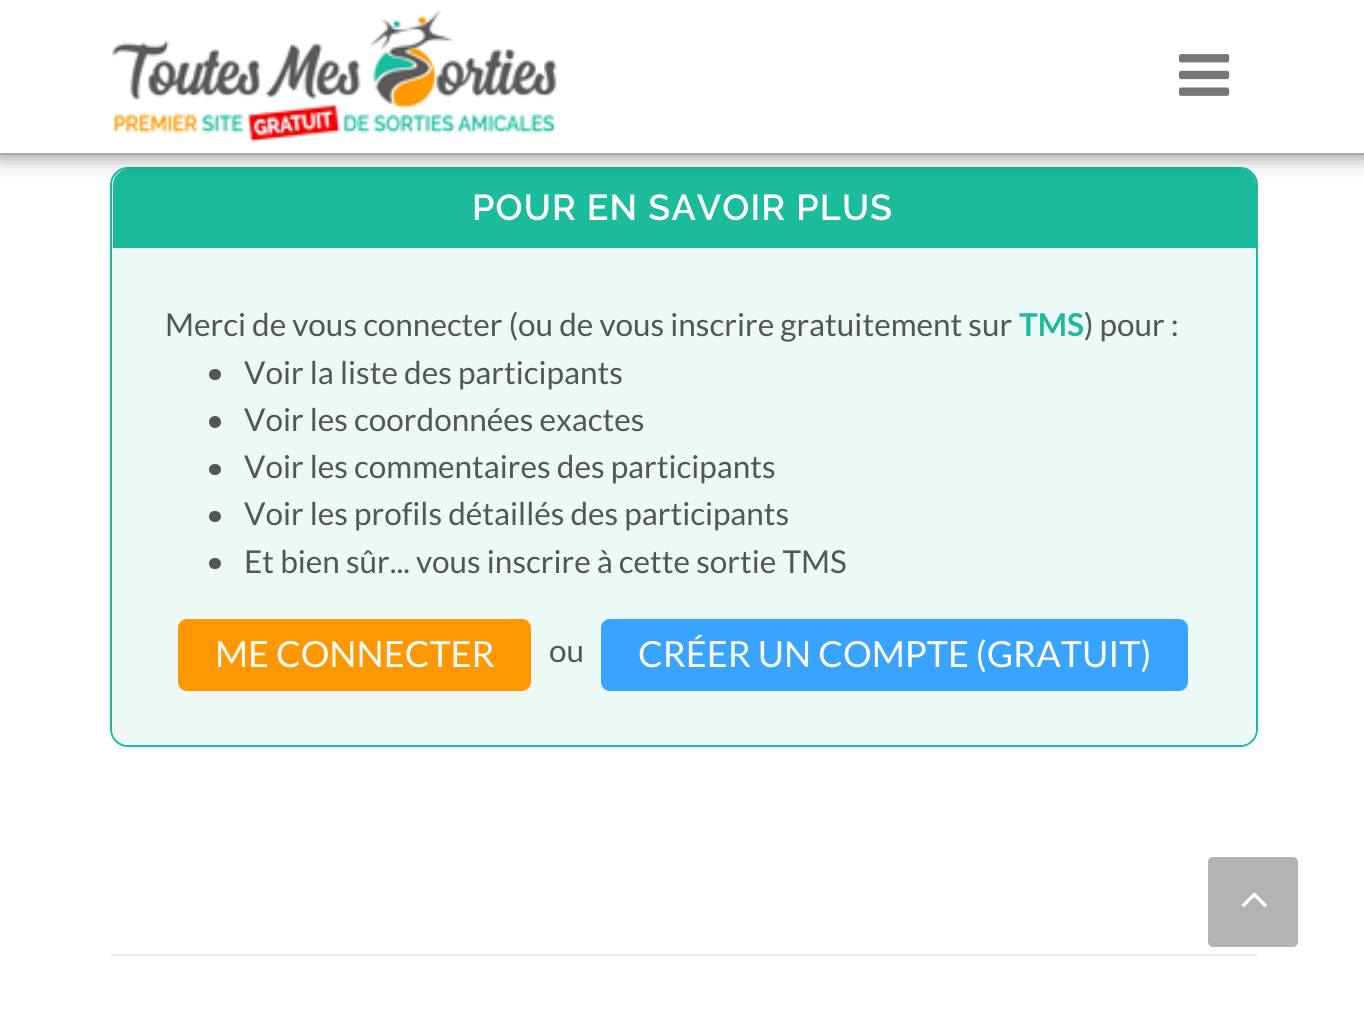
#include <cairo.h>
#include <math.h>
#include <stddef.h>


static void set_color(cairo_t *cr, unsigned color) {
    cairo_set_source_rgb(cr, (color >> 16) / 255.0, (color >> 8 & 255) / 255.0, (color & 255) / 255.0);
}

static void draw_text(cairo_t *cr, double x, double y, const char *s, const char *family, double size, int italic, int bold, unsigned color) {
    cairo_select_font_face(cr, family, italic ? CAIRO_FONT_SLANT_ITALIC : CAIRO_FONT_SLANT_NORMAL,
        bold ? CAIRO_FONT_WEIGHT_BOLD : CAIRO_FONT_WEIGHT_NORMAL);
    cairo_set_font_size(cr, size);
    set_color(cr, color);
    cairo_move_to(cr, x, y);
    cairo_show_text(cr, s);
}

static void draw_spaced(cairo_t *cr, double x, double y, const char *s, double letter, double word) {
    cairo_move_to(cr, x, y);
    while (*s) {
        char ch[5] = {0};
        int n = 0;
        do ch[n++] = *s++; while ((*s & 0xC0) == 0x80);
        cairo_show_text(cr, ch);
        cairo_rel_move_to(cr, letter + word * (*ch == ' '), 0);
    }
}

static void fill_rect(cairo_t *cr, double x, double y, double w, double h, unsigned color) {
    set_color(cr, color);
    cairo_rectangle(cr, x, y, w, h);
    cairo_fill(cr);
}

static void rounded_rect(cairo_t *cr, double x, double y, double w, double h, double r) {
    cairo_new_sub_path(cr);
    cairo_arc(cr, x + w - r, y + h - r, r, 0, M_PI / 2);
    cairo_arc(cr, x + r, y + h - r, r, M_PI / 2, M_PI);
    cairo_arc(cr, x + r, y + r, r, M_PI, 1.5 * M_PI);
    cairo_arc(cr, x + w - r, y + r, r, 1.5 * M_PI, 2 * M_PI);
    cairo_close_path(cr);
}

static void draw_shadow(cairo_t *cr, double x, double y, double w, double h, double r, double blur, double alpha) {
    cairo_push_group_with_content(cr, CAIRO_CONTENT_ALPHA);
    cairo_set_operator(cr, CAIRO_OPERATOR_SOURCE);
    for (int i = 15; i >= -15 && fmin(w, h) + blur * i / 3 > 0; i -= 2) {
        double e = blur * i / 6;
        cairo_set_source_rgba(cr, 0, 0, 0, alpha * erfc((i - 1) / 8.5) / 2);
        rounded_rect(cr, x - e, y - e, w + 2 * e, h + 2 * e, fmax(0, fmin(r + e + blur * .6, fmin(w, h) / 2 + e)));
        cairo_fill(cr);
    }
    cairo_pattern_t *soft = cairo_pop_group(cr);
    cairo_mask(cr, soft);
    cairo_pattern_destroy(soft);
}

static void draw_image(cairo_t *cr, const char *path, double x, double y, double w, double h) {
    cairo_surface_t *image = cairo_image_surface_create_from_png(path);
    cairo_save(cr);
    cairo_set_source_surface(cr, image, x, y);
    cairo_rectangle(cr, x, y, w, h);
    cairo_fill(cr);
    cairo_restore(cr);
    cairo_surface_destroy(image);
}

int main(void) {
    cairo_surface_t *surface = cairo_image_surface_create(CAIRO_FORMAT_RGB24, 1364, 1013);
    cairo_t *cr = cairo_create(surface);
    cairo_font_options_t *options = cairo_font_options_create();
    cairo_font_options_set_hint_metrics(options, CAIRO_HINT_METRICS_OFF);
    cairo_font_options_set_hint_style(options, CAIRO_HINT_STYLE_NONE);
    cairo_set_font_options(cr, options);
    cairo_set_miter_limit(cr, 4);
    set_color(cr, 0xFFFFFF);
    cairo_paint(cr);
    rounded_rect(cr, 111, 168, 1146, 578, 17);
    set_color(cr, 0x1ABC9C);
    cairo_stroke(cr);
    cairo_new_path(cr);
    cairo_move_to(cr, 129, 169);
    cairo_line_to(cr, 1240, 169);
    cairo_curve_to(cr, 1249, 169, 1256, 176, 1256, 185);
    cairo_line_to(cr, 1256, 248);
    cairo_line_to(cr, 113, 248);
    cairo_line_to(cr, 113, 185);
    cairo_curve_to(cr, 113, 176, 120, 169, 129, 169);
    cairo_close_path(cr);
    cairo_fill(cr);
    set_color(cr, 0x000000);
    draw_shadow(cr, 0, 0, 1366, 155, 0, 11, 0.5);
    fill_rect(cr, 0, 0, 1364, 153, 0xFFFFFF);
    fill_rect(cr, 0, 153, 1364, 2, 0xAAAAAA);
    draw_image(cr, "assets/img1.png", 112, 9, 445, 134);
    draw_image(cr, "assets/img2.png", 1179, 54, 51, 42);
    fill_rect(cr, 110, 954, 1148, 2, 0xEEEEEE);
    cairo_select_font_face(cr, "Raleway SemiBold", CAIRO_FONT_SLANT_NORMAL, CAIRO_FONT_WEIGHT_NORMAL);
    cairo_set_font_size(cr, 36);
    set_color(cr, 0xFFFFFF);
    draw_spaced(cr, 472, 220, "POUR EN SAVOIR PLUS", 1.1, 0);
    set_color(cr, 0xECF9F6);
    cairo_new_path(cr);
    cairo_move_to(cr, 113, 248);
    cairo_line_to(cr, 1256, 248);
    cairo_line_to(cr, 1256, 729);
    cairo_curve_to(cr, 1256, 738, 1249, 745, 1240, 745);
    cairo_line_to(cr, 129, 745);
    cairo_curve_to(cr, 120, 745, 113, 738, 113, 729);
    cairo_close_path(cr);
    cairo_fill(cr);
    draw_text(cr, 165, 336, "Merci de vous connecter (ou de vous inscrire gratuitement sur", "Lato", 31.5, 0, 0, 0x555555);
    draw_text(cr, 1019, 336, "TMS", "Lato", 31.5, 0, 1, 0x1ABC9C);
    draw_text(cr, 1084, 336, ") pour :", "Lato", 31.5, 0, 0, 0x555555);
    rounded_rect(cr, 209, 369, 12, 11, 5.5);
    cairo_fill(cr);
    draw_text(cr, 244, 384, "Voir la liste des participants", "Lato", 31.5, 0, 0, 0x555555);
    cairo_new_path(cr);
    cairo_arc(cr, 215, 422, 6, 0, 2 * M_PI);
    cairo_fill(cr);
    draw_text(cr, 244, 431, "Voir les coordonnées exactes", "Lato", 31.5, 0, 0, 0x555555);
    rounded_rect(cr, 209, 464, 12, 11, 5.5);
    cairo_fill(cr);
    draw_text(cr, 244, 478, "Voir les commentaires des participants", "Lato", 31.5, 0, 0, 0x555555);
    rounded_rect(cr, 209, 511, 12, 11, 5.5);
    cairo_fill(cr);
    draw_text(cr, 244, 525, "Voir les profils détaillés des participants", "Lato", 31.5, 0, 0, 0x555555);
    rounded_rect(cr, 209, 558, 12, 11, 5.5);
    cairo_fill(cr);
    draw_text(cr, 244, 573, "Et bien sûr... vous inscrire à cette sortie TMS", "Lato", 31.5, 0, 0, 0x555555);
    set_color(cr, 0xFF9800);
    rounded_rect(cr, 179, 620, 351, 70, 8);
    cairo_fill_preserve(cr);
    cairo_stroke(cr);
    draw_text(cr, 215, 667, "ME CONNECTER", "Lato", 36, 0, 0, 0xFFFFFF);
    draw_text(cr, 549, 662, "ou", "Lato", 31.5, 0, 0, 0x555555);
    set_color(cr, 0x39A4FF);
    rounded_rect(cr, 602, 620, 585, 70, 8);
    cairo_fill_preserve(cr);
    cairo_stroke(cr);
    draw_text(cr, 638, 667, "CRÉER UN COMPTE (GRATUIT)", "Lato", 36, 0, 0, 0xFFFFFF);
    set_color(cr, 0xB3B3B3);
    rounded_rect(cr, 1208, 857, 90, 90, 5);
    cairo_fill(cr);
    draw_image(cr, "assets/img3.png", 1241, 892, 26, 15);
    cairo_surface_write_to_png(surface, "output.png");
    cairo_font_options_destroy(options);
    cairo_destroy(cr);
    cairo_surface_destroy(surface);
    return 0;
}
